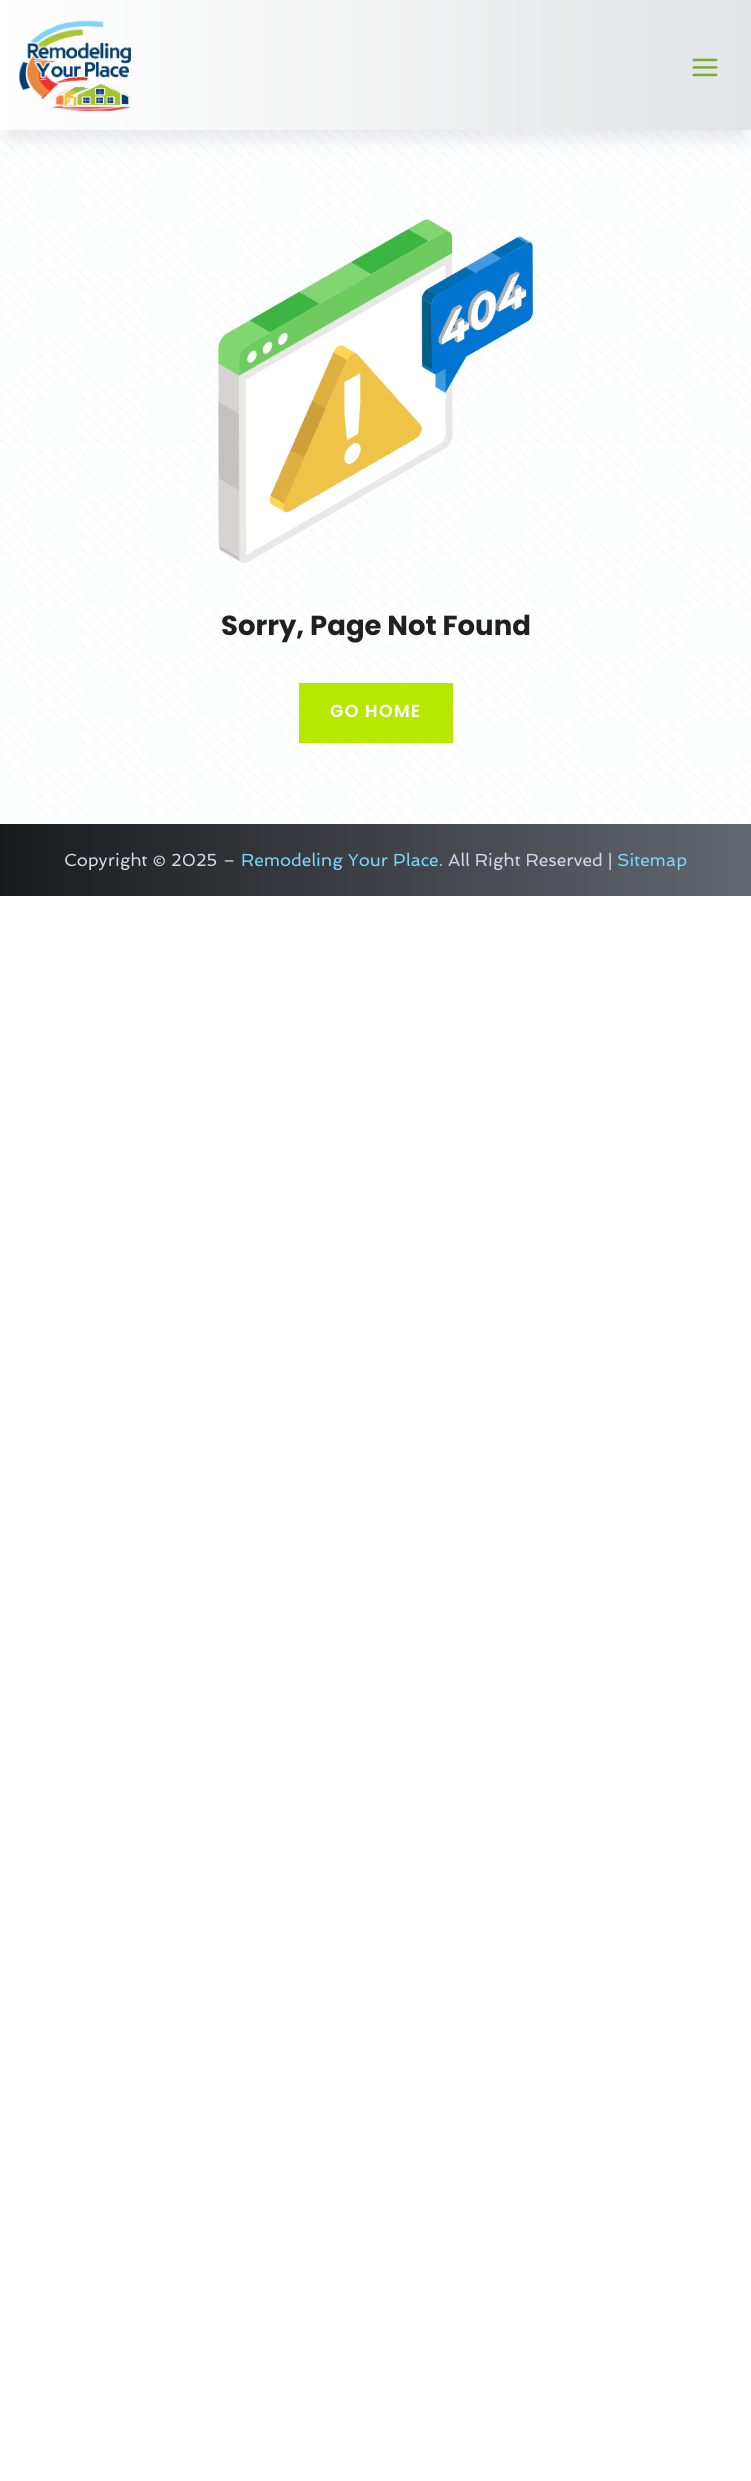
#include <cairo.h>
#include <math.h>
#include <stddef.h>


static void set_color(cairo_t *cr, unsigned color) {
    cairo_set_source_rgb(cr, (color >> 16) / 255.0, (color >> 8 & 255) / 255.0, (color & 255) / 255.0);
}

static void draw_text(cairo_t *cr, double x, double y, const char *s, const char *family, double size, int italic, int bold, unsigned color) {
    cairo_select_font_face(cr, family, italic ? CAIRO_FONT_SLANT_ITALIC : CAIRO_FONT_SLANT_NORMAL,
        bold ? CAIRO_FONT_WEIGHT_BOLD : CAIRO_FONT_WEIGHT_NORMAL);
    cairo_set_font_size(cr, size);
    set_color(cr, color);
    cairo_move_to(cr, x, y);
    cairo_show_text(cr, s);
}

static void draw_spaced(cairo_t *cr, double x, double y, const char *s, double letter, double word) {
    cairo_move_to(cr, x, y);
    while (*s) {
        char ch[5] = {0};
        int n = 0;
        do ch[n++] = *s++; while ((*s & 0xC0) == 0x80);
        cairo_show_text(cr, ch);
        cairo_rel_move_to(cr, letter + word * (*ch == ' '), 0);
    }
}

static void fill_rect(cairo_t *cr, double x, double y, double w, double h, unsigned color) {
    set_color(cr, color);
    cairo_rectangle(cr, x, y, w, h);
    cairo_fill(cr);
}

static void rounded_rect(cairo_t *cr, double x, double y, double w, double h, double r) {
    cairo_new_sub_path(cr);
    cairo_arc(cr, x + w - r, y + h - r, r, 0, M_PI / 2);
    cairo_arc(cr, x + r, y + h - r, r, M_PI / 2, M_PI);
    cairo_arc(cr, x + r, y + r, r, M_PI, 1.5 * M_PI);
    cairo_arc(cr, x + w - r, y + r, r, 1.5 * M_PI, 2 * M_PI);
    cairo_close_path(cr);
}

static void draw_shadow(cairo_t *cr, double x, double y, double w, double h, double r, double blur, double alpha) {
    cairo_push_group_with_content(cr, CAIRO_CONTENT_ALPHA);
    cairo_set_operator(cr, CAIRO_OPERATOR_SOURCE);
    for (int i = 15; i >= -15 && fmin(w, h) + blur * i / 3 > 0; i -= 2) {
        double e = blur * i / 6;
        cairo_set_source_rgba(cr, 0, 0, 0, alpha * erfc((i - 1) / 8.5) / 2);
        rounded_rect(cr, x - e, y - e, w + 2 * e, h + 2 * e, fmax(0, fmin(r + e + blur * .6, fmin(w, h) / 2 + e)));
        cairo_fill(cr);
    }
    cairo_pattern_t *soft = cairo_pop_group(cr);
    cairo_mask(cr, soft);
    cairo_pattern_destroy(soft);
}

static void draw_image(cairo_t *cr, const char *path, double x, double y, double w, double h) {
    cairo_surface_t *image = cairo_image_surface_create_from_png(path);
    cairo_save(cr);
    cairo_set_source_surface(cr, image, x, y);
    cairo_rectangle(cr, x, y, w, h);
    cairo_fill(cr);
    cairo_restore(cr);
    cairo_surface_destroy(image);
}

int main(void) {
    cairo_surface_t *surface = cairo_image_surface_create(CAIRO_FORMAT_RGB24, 751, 2481);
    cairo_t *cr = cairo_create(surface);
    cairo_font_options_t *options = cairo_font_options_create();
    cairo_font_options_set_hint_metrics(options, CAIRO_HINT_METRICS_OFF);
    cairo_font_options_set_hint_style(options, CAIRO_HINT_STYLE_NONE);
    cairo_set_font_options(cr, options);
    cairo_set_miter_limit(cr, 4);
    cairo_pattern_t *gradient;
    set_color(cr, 0xFFFFFF);
    cairo_paint(cr);
    draw_image(cr, "assets/img3.png", 0, 130, 751, 693);
    set_color(cr, 0x000000);
    draw_shadow(cr, 8, 23, 736, 115, 0, 11, 0.1);
    gradient = cairo_pattern_create_linear(0, 65, 751, 65);
    cairo_pattern_add_color_stop_rgba(gradient, 0, 1, 1, 1, 1);
    cairo_pattern_add_color_stop_rgba(gradient, 1, 0.89, 0.894, 0.898, 1);
    cairo_set_source(cr, gradient);
    cairo_pattern_destroy(gradient);
    cairo_rectangle(cr, 0, 0, 751, 130);
    cairo_fill(cr);
    draw_image(cr, "assets/img1.png", 19, 20, 112, 91);
    draw_image(cr, "assets/img2.png", 692, 58, 26, 19);
    draw_image(cr, "assets/img4.png", 218, 219, 315, 345);
    draw_text(cr, 221, 635, "Sorry, Page Not Found", "Poppins", 27.5, 0, 1, 0x202020);
    fill_rect(cr, 299, 683, 154, 60, 0xB9E704);
    cairo_select_font_face(cr, "Poppins SemiBold", CAIRO_FONT_SLANT_NORMAL, CAIRO_FONT_WEIGHT_NORMAL);
    cairo_set_font_size(cr, 17.5);
    set_color(cr, 0xFFFFFF);
    draw_spaced(cr, 330, 717, "GO HOME", 1.25, 0);
    gradient = cairo_pattern_create_linear(0, 860, 751, 860);
    cairo_pattern_add_color_stop_rgba(gradient, 0, 0.098, 0.102, 0.11, 1);
    cairo_pattern_add_color_stop_rgba(gradient, 1, 0.388, 0.404, 0.439, 1);
    cairo_set_source(cr, gradient);
    cairo_pattern_destroy(gradient);
    cairo_rectangle(cr, 0, 824, 751, 72);
    cairo_fill(cr);
    draw_text(cr, 64, 866, "Copyright © 2025 –", "Spinnaker", 17.5, 0, 0, 0xD5D8E5);
    draw_text(cr, 241, 866, "Remodeling Your Place.", "Spinnaker", 17.5, 0, 0, 0x7AD6FD);
    draw_text(cr, 448, 866, "All Right Reserved |", "Spinnaker", 17.5, 0, 0, 0xD5D8E5);
    draw_text(cr, 617, 866, "Sitemap", "Spinnaker", 17.5, 0, 0, 0x7AD6FD);
    cairo_surface_write_to_png(surface, "output.png");
    cairo_font_options_destroy(options);
    cairo_destroy(cr);
    cairo_surface_destroy(surface);
    return 0;
}
